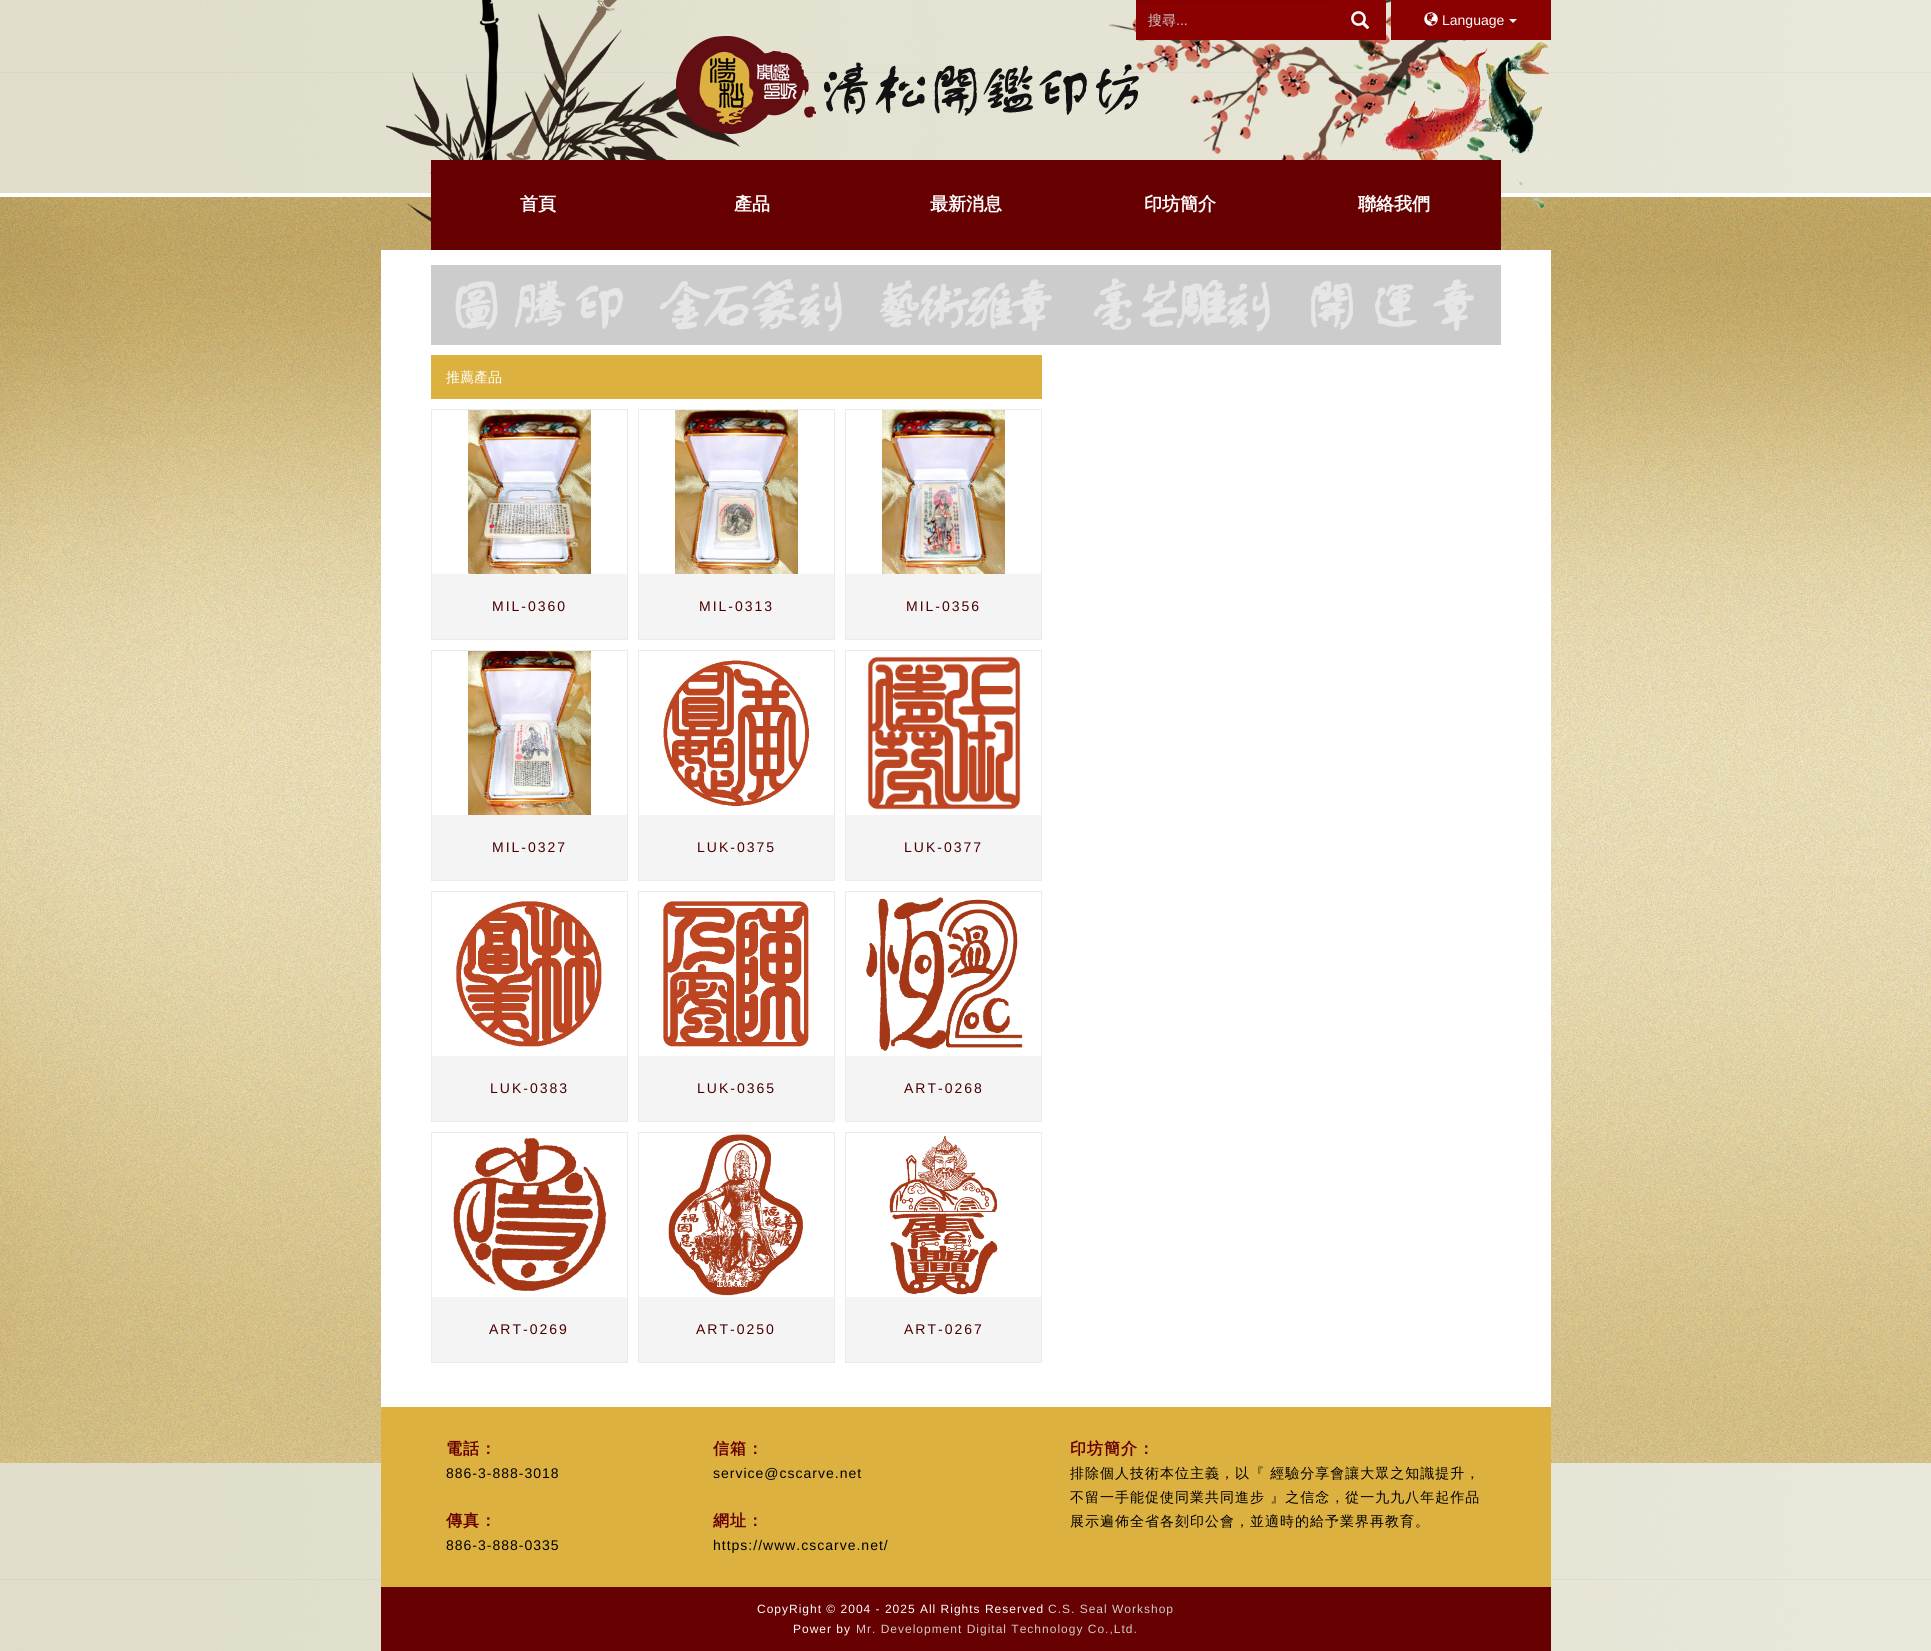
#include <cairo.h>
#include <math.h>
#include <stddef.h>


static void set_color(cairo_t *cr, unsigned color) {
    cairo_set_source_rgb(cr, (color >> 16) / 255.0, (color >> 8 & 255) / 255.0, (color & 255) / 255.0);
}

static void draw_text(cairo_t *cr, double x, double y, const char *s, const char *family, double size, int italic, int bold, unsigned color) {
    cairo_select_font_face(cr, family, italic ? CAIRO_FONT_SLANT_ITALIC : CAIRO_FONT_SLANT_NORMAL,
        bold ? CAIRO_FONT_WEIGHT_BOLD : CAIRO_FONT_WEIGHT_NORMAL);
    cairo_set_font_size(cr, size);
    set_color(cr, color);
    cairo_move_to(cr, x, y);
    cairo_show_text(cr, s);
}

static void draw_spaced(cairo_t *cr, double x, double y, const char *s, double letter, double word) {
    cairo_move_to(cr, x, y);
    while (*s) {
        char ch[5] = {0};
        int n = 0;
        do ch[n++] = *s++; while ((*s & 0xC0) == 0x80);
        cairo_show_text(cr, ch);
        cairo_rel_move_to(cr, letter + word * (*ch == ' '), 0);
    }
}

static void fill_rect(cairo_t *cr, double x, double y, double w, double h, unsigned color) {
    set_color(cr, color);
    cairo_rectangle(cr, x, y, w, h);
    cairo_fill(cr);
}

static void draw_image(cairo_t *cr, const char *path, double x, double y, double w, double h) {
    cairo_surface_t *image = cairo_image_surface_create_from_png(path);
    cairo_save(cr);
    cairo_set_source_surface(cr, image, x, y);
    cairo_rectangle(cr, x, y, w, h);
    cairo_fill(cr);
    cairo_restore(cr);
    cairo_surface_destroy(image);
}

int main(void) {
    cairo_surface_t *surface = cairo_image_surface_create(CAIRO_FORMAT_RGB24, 1931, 1651);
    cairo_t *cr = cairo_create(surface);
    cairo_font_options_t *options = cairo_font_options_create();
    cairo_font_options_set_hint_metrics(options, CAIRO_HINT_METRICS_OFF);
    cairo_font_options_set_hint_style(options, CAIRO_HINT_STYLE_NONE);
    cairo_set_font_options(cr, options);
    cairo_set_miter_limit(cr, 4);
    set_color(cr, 0xFFFFFF);
    cairo_paint(cr);
    draw_image(cr, "assets/img1.png", 0, 0, 1931, 1651);
    draw_image(cr, "assets/img2.png", 386, 0, 1164, 250);
    draw_image(cr, "assets/img5.png", 676, 36, 463, 98);
    fill_rect(cr, 1136, 1, 199, 39, 0x8B0102);
    fill_rect(cr, 1136, 0, 200, 1, 0x810102);
    draw_text(cr, 1148, 25, "搜尋", "WenQuanYi Zen Hei Medium", 14, 0, 0, 0xCCCCCC);
    draw_text(cr, 1176, 25, "...", "Liberation Sans", 14, 0, 0, 0xCCCCCC);
    fill_rect(cr, 1335, 0, 51, 40, 0x8B0102);
    draw_image(cr, "assets/img3.png", 1351, 11, 19, 19);
    fill_rect(cr, 1391, 0, 160, 40, 0x8B0102);
    draw_image(cr, "assets/img4.png", 1424, 12, 14, 14);
    draw_text(cr, 1442, 25, "Language", "Liberation Sans", 14, 0, 0, 0xFFFFFF);
    cairo_new_path(cr);
    cairo_move_to(cr, 1509, 19);
    cairo_line_to(cr, 1517, 19);
    cairo_line_to(cr, 1513, 23);
    cairo_close_path(cr);
    cairo_fill(cr);
    fill_rect(cr, 431, 160, 1070, 90, 0x670001);
    draw_text(cr, 520, 210, "首頁", "WenQuanYi Zen Hei", 18, 0, 1, 0xFFFFFF);
    draw_text(cr, 734, 210, "產品", "WenQuanYi Zen Hei", 18, 0, 1, 0xFFFFFF);
    draw_text(cr, 930, 210, "最新消息", "WenQuanYi Zen Hei", 18, 0, 1, 0xFFFFFF);
    draw_text(cr, 1144, 210, "印坊簡介", "WenQuanYi Zen Hei", 18, 0, 1, 0xFFFFFF);
    draw_text(cr, 1358, 210, "聯絡我們", "WenQuanYi Zen Hei", 18, 0, 1, 0xFFFFFF);
    fill_rect(cr, 381, 250, 1170, 1157, 0xFFFFFF);
    fill_rect(cr, 431, 265, 1070, 80, 0xCCCCCC);
    draw_image(cr, "assets/img6.png", 455, 280, 168, 50);
    draw_image(cr, "assets/img7.png", 659, 278, 183, 54);
    draw_image(cr, "assets/img8.png", 879, 279, 173, 52);
    draw_image(cr, "assets/img9.png", 1094, 278, 176, 54);
    draw_image(cr, "assets/img10.png", 1311, 279, 163, 52);
    fill_rect(cr, 431, 355, 611, 44, 0xDCB140);
    draw_text(cr, 446, 382, "推薦產品", "WenQuanYi Zen Hei Medium", 14, 0, 0, 0xFFFFFF);
    cairo_rectangle(cr, 431.5, 409.5, 196, 230);
    set_color(cr, 0xEBEBEB);
    cairo_set_line_width(cr, 1);
    cairo_stroke(cr);
    draw_image(cr, "assets/img11.png", 468, 410, 123, 164);
    fill_rect(cr, 432, 574, 195, 65, 0xF4F4F4);
    cairo_select_font_face(cr, "Liberation Sans", CAIRO_FONT_SLANT_NORMAL, CAIRO_FONT_WEIGHT_NORMAL);
    set_color(cr, 0x490000);
    draw_spaced(cr, 492, 611, "MIL-0360", 2, 0);
    cairo_rectangle(cr, 638.5, 409.5, 196, 230);
    set_color(cr, 0xEBEBEB);
    cairo_stroke(cr);
    draw_image(cr, "assets/img12.png", 675, 410, 123, 164);
    fill_rect(cr, 639, 574, 195, 65, 0xF4F4F4);
    set_color(cr, 0x490000);
    draw_spaced(cr, 699, 611, "MIL-0313", 2, 0);
    cairo_rectangle(cr, 845.5, 409.5, 196, 230);
    set_color(cr, 0xEBEBEB);
    cairo_stroke(cr);
    draw_image(cr, "assets/img13.png", 882, 410, 123, 164);
    fill_rect(cr, 846, 574, 195, 65, 0xF4F4F4);
    set_color(cr, 0x490000);
    draw_spaced(cr, 906, 611, "MIL-0356", 2, 0);
    cairo_rectangle(cr, 431.5, 650.5, 196, 230);
    set_color(cr, 0xEBEBEB);
    cairo_stroke(cr);
    draw_image(cr, "assets/img14.png", 468, 651, 123, 164);
    fill_rect(cr, 432, 815, 195, 65, 0xF4F4F4);
    set_color(cr, 0x490000);
    draw_spaced(cr, 492, 852, "MIL-0327", 2, 0);
    cairo_rectangle(cr, 638.5, 650.5, 196, 230);
    set_color(cr, 0xEBEBEB);
    cairo_stroke(cr);
    draw_image(cr, "assets/img15.png", 663, 660, 146, 146);
    fill_rect(cr, 639, 815, 195, 65, 0xF4F4F4);
    set_color(cr, 0x490000);
    draw_spaced(cr, 697, 852, "LUK-0375", 2, 0);
    cairo_rectangle(cr, 845.5, 650.5, 196, 230);
    set_color(cr, 0xEBEBEB);
    cairo_stroke(cr);
    draw_image(cr, "assets/img16.png", 867, 656, 154, 154);
    fill_rect(cr, 846, 815, 195, 65, 0xF4F4F4);
    set_color(cr, 0x490000);
    draw_spaced(cr, 904, 852, "LUK-0377", 2, 0);
    cairo_rectangle(cr, 431.5, 891.5, 196, 230);
    set_color(cr, 0xEBEBEB);
    cairo_stroke(cr);
    draw_image(cr, "assets/img17.png", 456, 901, 146, 146);
    fill_rect(cr, 432, 1056, 195, 65, 0xF4F4F4);
    set_color(cr, 0x490000);
    draw_spaced(cr, 490, 1093, "LUK-0383", 2, 0);
    cairo_rectangle(cr, 638.5, 891.5, 196, 230);
    set_color(cr, 0xEBEBEB);
    cairo_stroke(cr);
    draw_image(cr, "assets/img18.png", 663, 901, 146, 146);
    fill_rect(cr, 639, 1056, 195, 65, 0xF4F4F4);
    set_color(cr, 0x490000);
    draw_spaced(cr, 697, 1093, "LUK-0365", 2, 0);
    cairo_rectangle(cr, 845.5, 891.5, 196, 230);
    set_color(cr, 0xEBEBEB);
    cairo_stroke(cr);
    draw_image(cr, "assets/img19.png", 866, 897, 157, 154);
    fill_rect(cr, 846, 1056, 195, 65, 0xF4F4F4);
    set_color(cr, 0x490000);
    draw_spaced(cr, 904, 1093, "ART-0268", 2, 0);
    cairo_rectangle(cr, 431.5, 1132.5, 196, 230);
    set_color(cr, 0xEBEBEB);
    cairo_stroke(cr);
    draw_image(cr, "assets/img20.png", 453, 1138, 154, 153);
    fill_rect(cr, 432, 1297, 195, 65, 0xF4F4F4);
    set_color(cr, 0x490000);
    draw_spaced(cr, 489, 1334, "ART-0269", 2, 0);
    cairo_rectangle(cr, 638.5, 1132.5, 196, 230);
    set_color(cr, 0xEBEBEB);
    cairo_stroke(cr);
    draw_image(cr, "assets/img21.png", 668, 1134, 135, 162);
    fill_rect(cr, 639, 1297, 195, 65, 0xF4F4F4);
    set_color(cr, 0x490000);
    draw_spaced(cr, 696, 1334, "ART-0250", 2, 0);
    cairo_rectangle(cr, 845.5, 1132.5, 196, 230);
    set_color(cr, 0xEBEBEB);
    cairo_stroke(cr);
    draw_image(cr, "assets/img22.png", 889, 1135, 109, 160);
    fill_rect(cr, 846, 1297, 195, 65, 0xF4F4F4);
    set_color(cr, 0x490000);
    draw_spaced(cr, 904, 1334, "ART-0267", 2, 0);
    fill_rect(cr, 381, 1407, 1170, 180, 0xDCB140);
    cairo_select_font_face(cr, "WenQuanYi Zen Hei", CAIRO_FONT_SLANT_NORMAL, CAIRO_FONT_WEIGHT_BOLD);
    cairo_set_font_size(cr, 16);
    set_color(cr, 0x670001);
    draw_spaced(cr, 446, 1454, "電話：", 1, 0);
    cairo_select_font_face(cr, "Liberation Sans", CAIRO_FONT_SLANT_NORMAL, CAIRO_FONT_WEIGHT_NORMAL);
    cairo_set_font_size(cr, 14);
    set_color(cr, 0x000000);
    draw_spaced(cr, 446, 1478, "886-3-888-3018", 1, 0);
    cairo_select_font_face(cr, "WenQuanYi Zen Hei", CAIRO_FONT_SLANT_NORMAL, CAIRO_FONT_WEIGHT_BOLD);
    cairo_set_font_size(cr, 16);
    set_color(cr, 0x670001);
    draw_spaced(cr, 446, 1526, "傳真：", 1, 0);
    cairo_select_font_face(cr, "Liberation Sans", CAIRO_FONT_SLANT_NORMAL, CAIRO_FONT_WEIGHT_NORMAL);
    cairo_set_font_size(cr, 14);
    set_color(cr, 0x000000);
    draw_spaced(cr, 446, 1550, "886-3-888-0335", 1, 0);
    cairo_select_font_face(cr, "WenQuanYi Zen Hei", CAIRO_FONT_SLANT_NORMAL, CAIRO_FONT_WEIGHT_BOLD);
    cairo_set_font_size(cr, 16);
    set_color(cr, 0x670001);
    draw_spaced(cr, 713, 1454, "信箱：", 1, 0);
    cairo_select_font_face(cr, "Liberation Sans", CAIRO_FONT_SLANT_NORMAL, CAIRO_FONT_WEIGHT_NORMAL);
    cairo_set_font_size(cr, 14);
    set_color(cr, 0x000000);
    draw_spaced(cr, 713, 1478, "service@cscarve.net", 1, 0);
    cairo_select_font_face(cr, "WenQuanYi Zen Hei", CAIRO_FONT_SLANT_NORMAL, CAIRO_FONT_WEIGHT_BOLD);
    cairo_set_font_size(cr, 16);
    set_color(cr, 0x670001);
    draw_spaced(cr, 713, 1526, "網址：", 1, 0);
    cairo_select_font_face(cr, "Liberation Sans", CAIRO_FONT_SLANT_NORMAL, CAIRO_FONT_WEIGHT_NORMAL);
    cairo_set_font_size(cr, 14);
    set_color(cr, 0x000000);
    draw_spaced(cr, 713, 1550, "https://www.cscarve.net/", 1, 0);
    cairo_select_font_face(cr, "WenQuanYi Zen Hei", CAIRO_FONT_SLANT_NORMAL, CAIRO_FONT_WEIGHT_BOLD);
    cairo_set_font_size(cr, 16);
    set_color(cr, 0x670001);
    draw_spaced(cr, 1070, 1454, "印坊簡介：", 1, 0);
    cairo_select_font_face(cr, "WenQuanYi Zen Hei Medium", CAIRO_FONT_SLANT_NORMAL, CAIRO_FONT_WEIGHT_NORMAL);
    cairo_set_font_size(cr, 14);
    set_color(cr, 0x000000);
    draw_spaced(cr, 1070, 1478, "排除個人技術本位主義，以『 經驗分享會讓大眾之知識提升，", 1, 0);
    draw_spaced(cr, 1070, 1502, "不留一手能促使同業共同進步 』之信念，從一九九八年起作品", 1, 0);
    draw_spaced(cr, 1070, 1526, "展示遍佈全省各刻印公會，並適時的給予業界再教育。", 1, 0);
    fill_rect(cr, 381, 1587, 1170, 64, 0x670001);
    cairo_select_font_face(cr, "Liberation Sans", CAIRO_FONT_SLANT_NORMAL, CAIRO_FONT_WEIGHT_NORMAL);
    cairo_set_font_size(cr, 12);
    set_color(cr, 0xFFFFFF);
    draw_spaced(cr, 757, 1613, "CopyRight © 2004 - 2025 All Rights Reserved", 1, 0);
    set_color(cr, 0xCCCCCC);
    draw_spaced(cr, 1048, 1613, "C.S. Seal Workshop", 1, 0);
    set_color(cr, 0xFFFFFF);
    draw_spaced(cr, 793, 1633, "Power by", 1, 0);
    set_color(cr, 0xCCCCCC);
    draw_spaced(cr, 856, 1633, "Mr. Development Digital Technology Co.,Ltd.", 1, 0);
    cairo_surface_write_to_png(surface, "output.png");
    cairo_font_options_destroy(options);
    cairo_destroy(cr);
    cairo_surface_destroy(surface);
    return 0;
}
